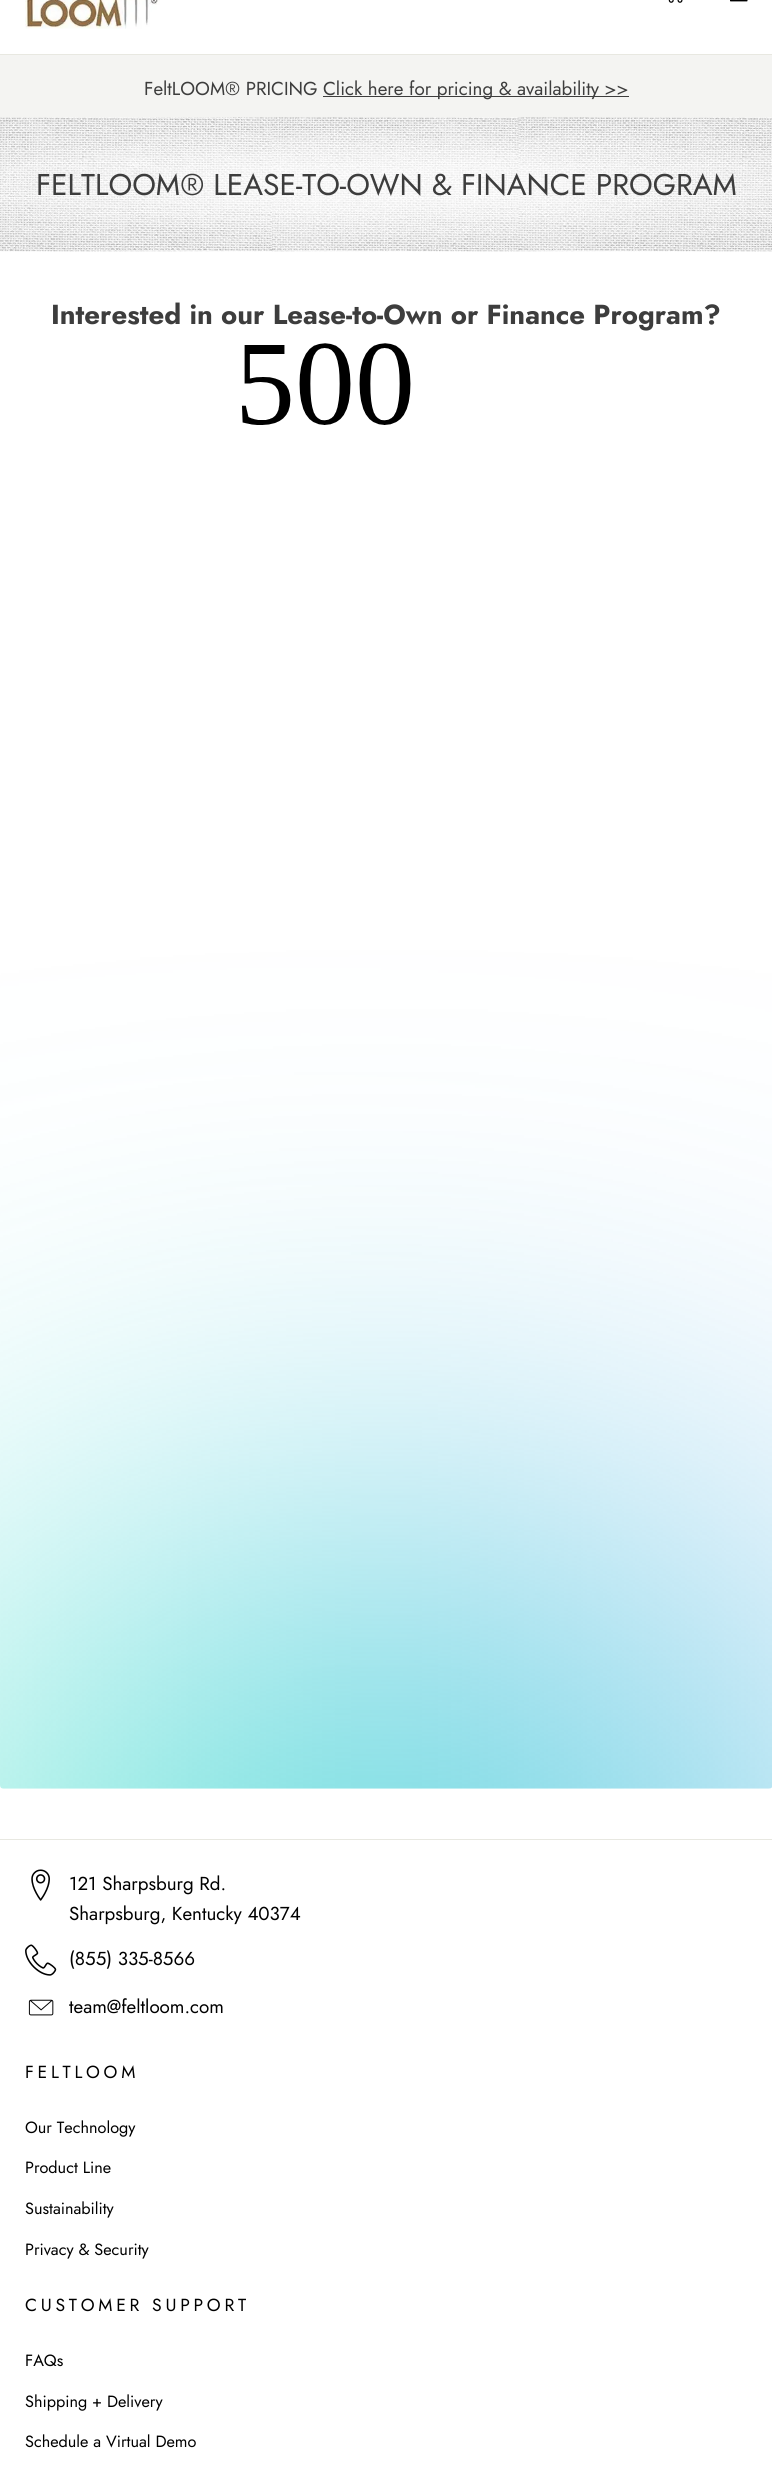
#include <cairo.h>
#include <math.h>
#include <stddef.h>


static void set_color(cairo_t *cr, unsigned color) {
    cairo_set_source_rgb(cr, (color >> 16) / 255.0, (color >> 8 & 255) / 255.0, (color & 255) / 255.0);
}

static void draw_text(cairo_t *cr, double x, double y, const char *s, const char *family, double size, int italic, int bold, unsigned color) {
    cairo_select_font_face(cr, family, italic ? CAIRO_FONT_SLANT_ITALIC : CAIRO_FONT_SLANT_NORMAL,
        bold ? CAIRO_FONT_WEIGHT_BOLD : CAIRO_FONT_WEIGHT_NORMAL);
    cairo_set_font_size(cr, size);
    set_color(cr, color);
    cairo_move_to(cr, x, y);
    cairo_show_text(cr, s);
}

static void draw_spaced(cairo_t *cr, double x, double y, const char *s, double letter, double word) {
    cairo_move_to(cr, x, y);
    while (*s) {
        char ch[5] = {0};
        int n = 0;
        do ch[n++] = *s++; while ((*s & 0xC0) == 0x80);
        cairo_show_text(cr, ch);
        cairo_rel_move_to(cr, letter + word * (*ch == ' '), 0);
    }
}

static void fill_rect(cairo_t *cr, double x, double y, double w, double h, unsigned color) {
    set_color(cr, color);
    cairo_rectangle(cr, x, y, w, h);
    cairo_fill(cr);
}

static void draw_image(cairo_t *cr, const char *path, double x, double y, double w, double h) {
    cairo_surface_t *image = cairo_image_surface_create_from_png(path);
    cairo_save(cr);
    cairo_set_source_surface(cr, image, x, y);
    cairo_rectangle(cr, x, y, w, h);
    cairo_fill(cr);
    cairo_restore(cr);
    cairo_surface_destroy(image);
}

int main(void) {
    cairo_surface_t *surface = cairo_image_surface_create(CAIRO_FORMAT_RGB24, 772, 2484);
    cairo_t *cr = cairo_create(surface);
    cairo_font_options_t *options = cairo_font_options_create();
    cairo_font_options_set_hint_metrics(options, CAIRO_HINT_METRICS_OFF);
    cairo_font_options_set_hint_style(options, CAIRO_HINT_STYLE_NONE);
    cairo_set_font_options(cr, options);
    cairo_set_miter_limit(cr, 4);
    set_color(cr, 0xFFFFFF);
    cairo_paint(cr);
    fill_rect(cr, 0, 54, 772, 1, 0xE8E8E1);
    draw_image(cr, "assets/img1.png", 25, 0, 135, 29);
    draw_image(cr, "assets/img2.png", 668, 0, 15, 3);
    draw_image(cr, "assets/img3.png", 730, 0, 18, 2);
    fill_rect(cr, 0, 55, 772, 63, 0xF4F4F2);
    draw_text(cr, 144, 95, "FeltLOOM® PRICING", "Jost", 18.75, 0, 0, 0x3D3D3D);
    fill_rect(cr, 323, 96, 306, 1, 0x3D3D3D);
    draw_text(cr, 323, 95, "Click here for pricing & availability >>", "Jost", 18.75, 0, 0, 0x3D3D3D);
    draw_image(cr, "assets/img4.png", 0, 117, 772, 135);
    draw_text(cr, 36, 195, "FELTLOOM® LEASE-TO-OWN & FINANCE PROGRAM", "Jost", 30, 0, 0, 0x3D3D3D);
    draw_text(cr, 51, 324, "Interested in our Lease-to-Own or Finance Program?", "Jost", 27.5, 0, 1, 0x3D3D3D);
    draw_image(cr, "assets/img5.png", 0, 343, 772, 1446);
    fill_rect(cr, 0, 1839, 772, 1, 0xE8E8E1);
    draw_image(cr, "assets/img6.png", 31, 1869, 19, 32);
    draw_text(cr, 69, 1890, "121 Sharpsburg Rd.", "Jost", 18.75, 0, 0, 0x000000);
    draw_text(cr, 69, 1920, "Sharpsburg, Kentucky 40374", "Jost", 18.75, 0, 0, 0x000000);
    draw_image(cr, "assets/img7.png", 25, 1944, 32, 32);
    draw_text(cr, 69, 1965, "(855) 335-8566", "Jost", 18.75, 0, 0, 0x000000);
    draw_image(cr, "assets/img8.png", 28, 1999, 26, 17);
    draw_text(cr, 69, 2013, "team@feltloom.com", "Jost", 18.75, 0, 0, 0x000000);
    cairo_set_font_size(cr, 17.5);
    draw_spaced(cr, 25, 2078, "FELTLOOM", 3.75, 0);
    draw_text(cr, 25, 2133, "Our Technology", "Jost", 16.25, 0, 0, 0x000000);
    draw_text(cr, 25, 2173, "Product Line", "Jost", 16.25, 0, 0, 0x000000);
    draw_text(cr, 25, 2214, "Sustainability", "Jost", 16.25, 0, 0, 0x000000);
    draw_text(cr, 25, 2255, "Privacy & Security", "Jost", 16.25, 0, 0, 0x000000);
    cairo_set_font_size(cr, 17.5);
    draw_spaced(cr, 25, 2311, "CUSTOMER SUPPORT", 3.75, 0);
    draw_text(cr, 25, 2366, "FAQs", "Jost", 16.25, 0, 0, 0x000000);
    draw_text(cr, 25, 2407, "Shipping + Delivery", "Jost", 16.25, 0, 0, 0x000000);
    draw_text(cr, 25, 2447, "Schedule a Virtual Demo", "Jost", 16.25, 0, 0, 0x000000);
    cairo_surface_write_to_png(surface, "output.png");
    cairo_font_options_destroy(options);
    cairo_destroy(cr);
    cairo_surface_destroy(surface);
    return 0;
}
